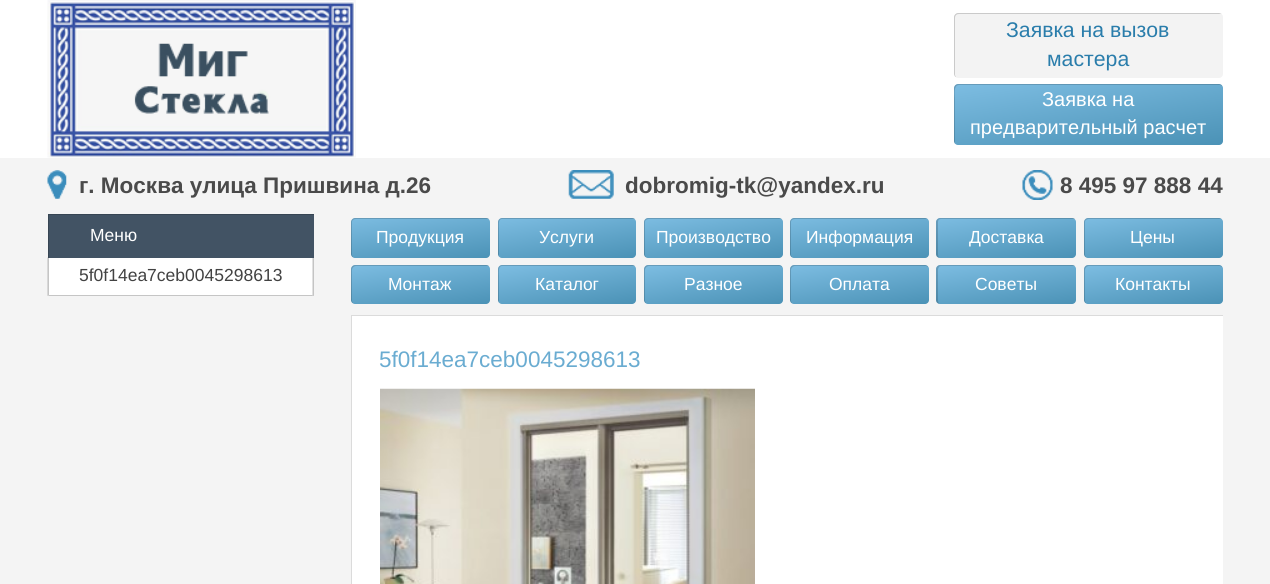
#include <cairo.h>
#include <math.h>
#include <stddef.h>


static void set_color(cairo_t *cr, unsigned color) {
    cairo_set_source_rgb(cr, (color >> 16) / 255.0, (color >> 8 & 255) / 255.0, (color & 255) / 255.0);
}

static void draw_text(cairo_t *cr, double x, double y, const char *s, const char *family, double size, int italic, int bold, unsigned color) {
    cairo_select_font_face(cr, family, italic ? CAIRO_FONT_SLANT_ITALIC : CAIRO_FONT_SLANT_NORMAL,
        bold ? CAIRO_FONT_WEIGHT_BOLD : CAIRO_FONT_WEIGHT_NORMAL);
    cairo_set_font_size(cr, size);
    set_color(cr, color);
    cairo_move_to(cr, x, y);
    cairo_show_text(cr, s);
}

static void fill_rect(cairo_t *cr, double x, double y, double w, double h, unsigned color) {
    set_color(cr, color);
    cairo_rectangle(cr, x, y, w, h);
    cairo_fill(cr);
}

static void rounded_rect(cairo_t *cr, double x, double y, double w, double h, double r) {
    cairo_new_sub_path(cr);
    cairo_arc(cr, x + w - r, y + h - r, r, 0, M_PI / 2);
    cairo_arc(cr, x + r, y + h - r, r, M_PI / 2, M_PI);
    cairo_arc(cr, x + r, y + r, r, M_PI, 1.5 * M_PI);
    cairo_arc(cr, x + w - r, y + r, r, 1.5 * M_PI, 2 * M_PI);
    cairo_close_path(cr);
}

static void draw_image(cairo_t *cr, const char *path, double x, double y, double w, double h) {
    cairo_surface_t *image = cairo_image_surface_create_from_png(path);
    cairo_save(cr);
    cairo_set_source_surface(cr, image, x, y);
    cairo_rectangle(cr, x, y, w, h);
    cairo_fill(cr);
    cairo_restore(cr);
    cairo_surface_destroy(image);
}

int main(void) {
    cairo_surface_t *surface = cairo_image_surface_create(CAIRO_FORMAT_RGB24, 1270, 584);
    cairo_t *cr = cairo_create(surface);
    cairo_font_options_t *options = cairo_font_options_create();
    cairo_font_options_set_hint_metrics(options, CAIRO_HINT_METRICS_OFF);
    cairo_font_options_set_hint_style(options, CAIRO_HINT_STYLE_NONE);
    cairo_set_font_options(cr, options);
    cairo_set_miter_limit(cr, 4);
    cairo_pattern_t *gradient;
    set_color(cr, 0xF4F4F4);
    cairo_paint(cr);
    fill_rect(cr, 0, 0, 1270, 158, 0xFFFFFF);
    draw_image(cr, "assets/img1.png", 47, 0, 309, 158);
    set_color(cr, 0xF3F3F3);
    rounded_rect(cr, 954, 13, 269, 65, 4);
    cairo_fill(cr);
    cairo_set_source_rgba(cr, 0, 0, 0, 0.17);
    cairo_new_path(cr);
    cairo_move_to(cr, 959, 14);
    cairo_line_to(cr, 1220, 14);
    cairo_line_to(cr, 1222, 14);
    cairo_curve_to(cr, 1221, 14, 1220, 13, 1219, 13);
    cairo_line_to(cr, 958, 13);
    cairo_curve_to(cr, 956, 13, 954, 15, 954, 17);
    cairo_line_to(cr, 954, 74);
    cairo_curve_to(cr, 954, 75, 955, 77, 956, 77);
    cairo_line_to(cr, 955, 75);
    cairo_line_to(cr, 955, 18);
    cairo_curve_to(cr, 955, 15, 957, 14, 959, 14);
    cairo_close_path(cr);
    cairo_fill(cr);
    draw_text(cr, 1006, 37, "Заявка на вызов", "Liberation Sans", 21.25, 0, 0, 0x2A7DAB);
    draw_text(cr, 1047, 66, "мастера", "Liberation Sans", 21.25, 0, 0, 0x2A7DAB);
    gradient = cairo_pattern_create_linear(1096, 165, 1080, 64);
    cairo_pattern_add_color_stop_rgba(gradient, 0, 0.294, 0.573, 0.714, 1);
    cairo_pattern_add_color_stop_rgba(gradient, 1, 0.49, 0.741, 0.886, 1);
    cairo_set_source(cr, gradient);
    cairo_pattern_destroy(gradient);
    rounded_rect(cr, 954, 84, 269, 61, 4);
    cairo_fill(cr);
    cairo_set_source_rgba(cr, 0, 0, 0, 0.17);
    cairo_new_path(cr);
    cairo_move_to(cr, 959, 85);
    cairo_line_to(cr, 1220, 85);
    cairo_line_to(cr, 1222, 86);
    cairo_curve_to(cr, 1222, 85, 1220, 84, 1219, 84);
    cairo_line_to(cr, 958, 84);
    cairo_curve_to(cr, 956, 84, 954, 86, 954, 88);
    cairo_line_to(cr, 954, 141);
    cairo_curve_to(cr, 954, 142, 955, 143, 955, 144);
    cairo_line_to(cr, 955, 98);
    cairo_curve_to(cr, 955, 96, 953, 85, 959, 85);
    cairo_close_path(cr);
    cairo_fill(cr);
    draw_text(cr, 1042, 106, "Заявка на", "Liberation Sans", 20, 0, 0, 0xFFFFFF);
    draw_text(cr, 970, 134, "предварительный расчет", "Liberation Sans", 20, 0, 0, 0xFFFFFF);
    draw_image(cr, "assets/img2.png", 47, 170, 20, 29);
    draw_text(cr, 79, 193, "г. Москва улица Пришвина д.26", "Liberation Sans", 22.5, 0, 1, 0x4A4A4A);
    draw_image(cr, "assets/img3.png", 568, 170, 46, 29);
    draw_text(cr, 625, 193, "dobromig-tk@yandex.ru", "Liberation Sans", 22.5, 0, 1, 0x4A4A4A);
    draw_image(cr, "assets/img4.png", 1022, 170, 31, 30);
    draw_text(cr, 1060, 193, "8 495 97 888 44", "Liberation Sans", 22.5, 0, 1, 0x4A4A4A);
    fill_rect(cr, 48, 258, 266, 38, 0xFFFFFF);
    set_color(cr, 0xC4C4C4);
    cairo_new_path(cr);
    cairo_move_to(cr, 314, 257.5);
    cairo_line_to(cr, 314, 296);
    cairo_line_to(cr, 312.5, 295);
    cairo_line_to(cr, 312.5, 257.5);
    cairo_close_path(cr);
    cairo_fill(cr);
    fill_rect(cr, 49, 215, 265, 43, 0x425364);
    cairo_set_source_rgba(cr, 0, 0, 0, 0.23);
    cairo_new_path(cr);
    cairo_move_to(cr, 314, 296);
    cairo_line_to(cr, 48, 296);
    cairo_line_to(cr, 49, 295);
    cairo_line_to(cr, 312, 295);
    cairo_close_path(cr);
    cairo_fill(cr);
    cairo_new_path(cr);
    cairo_move_to(cr, 47.5, 296);
    cairo_line_to(cr, 47.5, 257.5);
    cairo_line_to(cr, 49, 257.5);
    cairo_line_to(cr, 49, 295);
    cairo_close_path(cr);
    cairo_fill(cr);
    cairo_save(cr);
    cairo_rectangle(cr, 48, 214, 266, 44);
    cairo_clip(cr);
    set_color(cr, 0x374553);
    cairo_set_fill_rule(cr, CAIRO_FILL_RULE_EVEN_ODD);
    cairo_new_path(cr);
    cairo_move_to(cr, -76, 90);
    cairo_line_to(cr, 438, 90);
    cairo_line_to(cr, 438, 381);
    cairo_line_to(cr, -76, 381);
    cairo_close_path(cr);
    cairo_move_to(cr, 49, 215);
    cairo_line_to(cr, 315, 215);
    cairo_line_to(cr, 315, 259);
    cairo_line_to(cr, 49, 259);
    cairo_close_path(cr);
    cairo_fill(cr);
    cairo_restore(cr);
    draw_text(cr, 90, 241, "Меню", "Liberation Sans", 17.5, 0, 0, 0xFFFFFF);
    draw_text(cr, 79, 281, "5f0f14ea7ceb0045298613", "Liberation Sans", 17.5, 0, 0, 0x424242);
    gradient = cairo_pattern_create_linear(425, 268, 416, 207);
    cairo_pattern_add_color_stop_rgba(gradient, 0, 0.294, 0.573, 0.714, 1);
    cairo_pattern_add_color_stop_rgba(gradient, 1, 0.49, 0.741, 0.886, 1);
    cairo_set_source(cr, gradient);
    cairo_pattern_destroy(gradient);
    rounded_rect(cr, 351, 218, 139, 40, 4);
    cairo_fill(cr);
    cairo_set_source_rgba(cr, 0, 0, 0, 0.17);
    cairo_new_path(cr);
    cairo_move_to(cr, 356, 219);
    cairo_line_to(cr, 489, 219);
    cairo_curve_to(cr, 488, 218, 487, 218, 486, 218);
    cairo_line_to(cr, 355, 218);
    cairo_curve_to(cr, 353, 218, 351, 220, 351, 222);
    cairo_line_to(cr, 351, 254);
    cairo_curve_to(cr, 351, 255, 352, 257, 353, 257);
    cairo_line_to(cr, 352, 255);
    cairo_line_to(cr, 352, 222);
    cairo_curve_to(cr, 352, 220, 354, 219, 356, 219);
    cairo_close_path(cr);
    cairo_fill(cr);
    draw_text(cr, 376, 243, "Продукция", "Liberation Sans", 17.5, 0, 0, 0xFFFFFF);
    gradient = cairo_pattern_create_linear(572, 268, 562, 207);
    cairo_pattern_add_color_stop_rgba(gradient, 0, 0.294, 0.573, 0.714, 1);
    cairo_pattern_add_color_stop_rgba(gradient, 1, 0.49, 0.741, 0.886, 1);
    cairo_set_source(cr, gradient);
    cairo_pattern_destroy(gradient);
    rounded_rect(cr, 498, 218, 138, 40, 4);
    cairo_fill(cr);
    cairo_set_source_rgba(cr, 0, 0, 0, 0.17);
    cairo_new_path(cr);
    cairo_move_to(cr, 502, 219);
    cairo_line_to(cr, 635, 219);
    cairo_curve_to(cr, 634, 218, 633, 218, 632, 218);
    cairo_line_to(cr, 502, 218);
    cairo_curve_to(cr, 500, 218, 498, 220, 498, 222);
    cairo_line_to(cr, 498, 254);
    cairo_curve_to(cr, 498, 255, 499, 256, 499, 257);
    cairo_line_to(cr, 499, 228);
    cairo_curve_to(cr, 499, 225, 498, 219, 502, 219);
    cairo_close_path(cr);
    cairo_fill(cr);
    draw_text(cr, 539, 243, "Услуги", "Liberation Sans", 17.5, 0, 0, 0xFFFFFF);
    gradient = cairo_pattern_create_linear(718, 268, 708, 207);
    cairo_pattern_add_color_stop_rgba(gradient, 0, 0.294, 0.573, 0.714, 1);
    cairo_pattern_add_color_stop_rgba(gradient, 1, 0.49, 0.741, 0.886, 1);
    cairo_set_source(cr, gradient);
    cairo_pattern_destroy(gradient);
    rounded_rect(cr, 644, 218, 139, 40, 4);
    cairo_fill(cr);
    cairo_set_source_rgba(cr, 0, 0, 0, 0.17);
    cairo_new_path(cr);
    cairo_move_to(cr, 649, 219);
    cairo_line_to(cr, 782, 219);
    cairo_curve_to(cr, 781, 219, 780, 218, 779, 218);
    cairo_line_to(cr, 648, 218);
    cairo_curve_to(cr, 646, 218, 644, 220, 644, 222);
    cairo_line_to(cr, 644, 254);
    cairo_curve_to(cr, 644, 255, 645, 257, 646, 257);
    cairo_line_to(cr, 645, 255);
    cairo_line_to(cr, 645, 222);
    cairo_curve_to(cr, 645, 220, 647, 219, 649, 219);
    cairo_close_path(cr);
    cairo_fill(cr);
    draw_text(cr, 656, 243, "Производство", "Liberation Sans", 17.5, 0, 0, 0xFFFFFF);
    gradient = cairo_pattern_create_linear(864, 268, 855, 207);
    cairo_pattern_add_color_stop_rgba(gradient, 0, 0.294, 0.573, 0.714, 1);
    cairo_pattern_add_color_stop_rgba(gradient, 1, 0.49, 0.741, 0.886, 1);
    cairo_set_source(cr, gradient);
    cairo_pattern_destroy(gradient);
    rounded_rect(cr, 790, 218, 139, 40, 4);
    cairo_fill(cr);
    cairo_set_source_rgba(cr, 0, 0, 0, 0.17);
    cairo_new_path(cr);
    cairo_move_to(cr, 795, 219);
    cairo_line_to(cr, 928, 219);
    cairo_curve_to(cr, 927, 219, 926, 218, 925, 218);
    cairo_line_to(cr, 794, 218);
    cairo_curve_to(cr, 792, 218, 790, 220, 790, 222);
    cairo_line_to(cr, 790, 254);
    cairo_curve_to(cr, 790, 255, 791, 257, 792, 257);
    cairo_line_to(cr, 791, 255);
    cairo_line_to(cr, 791, 222);
    cairo_curve_to(cr, 791, 220, 793, 219, 795, 219);
    cairo_close_path(cr);
    cairo_fill(cr);
    draw_text(cr, 806, 243, "Информация", "Liberation Sans", 17.5, 0, 0, 0xFFFFFF);
    gradient = cairo_pattern_create_linear(1011, 268, 1001, 207);
    cairo_pattern_add_color_stop_rgba(gradient, 0, 0.294, 0.573, 0.714, 1);
    cairo_pattern_add_color_stop_rgba(gradient, 1, 0.49, 0.741, 0.886, 1);
    cairo_set_source(cr, gradient);
    cairo_pattern_destroy(gradient);
    rounded_rect(cr, 936, 218, 140, 40, 4);
    cairo_fill(cr);
    cairo_set_source_rgba(cr, 0, 0, 0, 0.17);
    cairo_new_path(cr);
    cairo_move_to(cr, 941, 219);
    cairo_line_to(cr, 1075, 219);
    cairo_curve_to(cr, 1074, 218, 1073, 218, 1072, 218);
    cairo_line_to(cr, 940, 218);
    cairo_curve_to(cr, 938, 218, 936, 220, 936, 222);
    cairo_line_to(cr, 936, 254);
    cairo_curve_to(cr, 936, 256, 937, 257, 939, 258);
    cairo_line_to(cr, 938, 255);
    cairo_line_to(cr, 938, 222);
    cairo_curve_to(cr, 938, 220, 939, 219, 941, 219);
    cairo_close_path(cr);
    cairo_fill(cr);
    draw_text(cr, 969, 243, "Доставка", "Liberation Sans", 17.5, 0, 0, 0xFFFFFF);
    gradient = cairo_pattern_create_linear(1158, 268, 1148, 207);
    cairo_pattern_add_color_stop_rgba(gradient, 0, 0.294, 0.573, 0.714, 1);
    cairo_pattern_add_color_stop_rgba(gradient, 1, 0.49, 0.741, 0.886, 1);
    cairo_set_source(cr, gradient);
    cairo_pattern_destroy(gradient);
    rounded_rect(cr, 1084, 218, 139, 40, 4);
    cairo_fill(cr);
    cairo_set_source_rgba(cr, 0, 0, 0, 0.17);
    cairo_new_path(cr);
    cairo_move_to(cr, 1089, 219);
    cairo_line_to(cr, 1222, 219);
    cairo_curve_to(cr, 1221, 219, 1220, 218, 1219, 218);
    cairo_line_to(cr, 1088, 218);
    cairo_curve_to(cr, 1086, 218, 1084, 220, 1084, 222);
    cairo_line_to(cr, 1084, 254);
    cairo_curve_to(cr, 1084, 255, 1085, 257, 1086, 257);
    cairo_line_to(cr, 1085, 255);
    cairo_line_to(cr, 1085, 222);
    cairo_curve_to(cr, 1085, 220, 1087, 219, 1089, 219);
    cairo_close_path(cr);
    cairo_fill(cr);
    draw_text(cr, 1130, 243, "Цены", "Liberation Sans", 17.5, 0, 0, 0xFFFFFF);
    gradient = cairo_pattern_create_linear(425, 314, 416, 255);
    cairo_pattern_add_color_stop_rgba(gradient, 0, 0.294, 0.573, 0.714, 1);
    cairo_pattern_add_color_stop_rgba(gradient, 1, 0.49, 0.741, 0.886, 1);
    cairo_set_source(cr, gradient);
    cairo_pattern_destroy(gradient);
    rounded_rect(cr, 351, 265, 139, 39, 4);
    cairo_fill(cr);
    cairo_set_source_rgba(cr, 0, 0, 0, 0.17);
    cairo_new_path(cr);
    cairo_move_to(cr, 356, 266);
    cairo_line_to(cr, 489, 266);
    cairo_curve_to(cr, 488, 265, 487, 265, 486, 265);
    cairo_line_to(cr, 355, 265);
    cairo_curve_to(cr, 353, 265, 351, 267, 351, 269);
    cairo_line_to(cr, 351, 300);
    cairo_curve_to(cr, 351, 301, 352, 303, 353, 303);
    cairo_line_to(cr, 352, 301);
    cairo_line_to(cr, 352, 270);
    cairo_curve_to(cr, 352, 268, 354, 266, 356, 266);
    cairo_close_path(cr);
    cairo_fill(cr);
    draw_text(cr, 388, 290, "Монтаж", "Liberation Sans", 17.5, 0, 0, 0xFFFFFF);
    gradient = cairo_pattern_create_linear(572, 314, 562, 255);
    cairo_pattern_add_color_stop_rgba(gradient, 0, 0.294, 0.573, 0.714, 1);
    cairo_pattern_add_color_stop_rgba(gradient, 1, 0.49, 0.741, 0.886, 1);
    cairo_set_source(cr, gradient);
    cairo_pattern_destroy(gradient);
    rounded_rect(cr, 498, 265, 138, 39, 4);
    cairo_fill(cr);
    cairo_set_source_rgba(cr, 0, 0, 0, 0.17);
    cairo_new_path(cr);
    cairo_move_to(cr, 502, 266);
    cairo_line_to(cr, 635, 266);
    cairo_curve_to(cr, 634, 265, 633, 265, 632, 265);
    cairo_line_to(cr, 502, 265);
    cairo_curve_to(cr, 500, 265, 498, 267, 498, 269);
    cairo_line_to(cr, 498, 300);
    cairo_curve_to(cr, 498, 301, 499, 302, 499, 303);
    cairo_line_to(cr, 499, 275);
    cairo_curve_to(cr, 499, 273, 498, 266, 502, 266);
    cairo_close_path(cr);
    cairo_fill(cr);
    draw_text(cr, 535, 290, "Каталог", "Liberation Sans", 17.5, 0, 0, 0xFFFFFF);
    gradient = cairo_pattern_create_linear(718, 314, 708, 255);
    cairo_pattern_add_color_stop_rgba(gradient, 0, 0.294, 0.573, 0.714, 1);
    cairo_pattern_add_color_stop_rgba(gradient, 1, 0.49, 0.741, 0.886, 1);
    cairo_set_source(cr, gradient);
    cairo_pattern_destroy(gradient);
    rounded_rect(cr, 644, 265, 139, 39, 4);
    cairo_fill(cr);
    cairo_set_source_rgba(cr, 0, 0, 0, 0.17);
    cairo_new_path(cr);
    cairo_move_to(cr, 649, 266);
    cairo_line_to(cr, 780, 266);
    cairo_line_to(cr, 782, 267);
    cairo_curve_to(cr, 782, 266, 780, 265, 779, 265);
    cairo_line_to(cr, 648, 265);
    cairo_curve_to(cr, 646, 265, 644, 267, 644, 269);
    cairo_line_to(cr, 644, 300);
    cairo_curve_to(cr, 644, 301, 645, 303, 646, 303);
    cairo_line_to(cr, 645, 301);
    cairo_line_to(cr, 645, 270);
    cairo_curve_to(cr, 645, 268, 647, 266, 649, 266);
    cairo_close_path(cr);
    cairo_fill(cr);
    draw_text(cr, 684, 290, "Разное", "Liberation Sans", 17.5, 0, 0, 0xFFFFFF);
    gradient = cairo_pattern_create_linear(864, 314, 855, 255);
    cairo_pattern_add_color_stop_rgba(gradient, 0, 0.294, 0.573, 0.714, 1);
    cairo_pattern_add_color_stop_rgba(gradient, 1, 0.49, 0.741, 0.886, 1);
    cairo_set_source(cr, gradient);
    cairo_pattern_destroy(gradient);
    rounded_rect(cr, 790, 265, 139, 39, 4);
    cairo_fill(cr);
    cairo_set_source_rgba(cr, 0, 0, 0, 0.17);
    cairo_new_path(cr);
    cairo_move_to(cr, 795, 266);
    cairo_line_to(cr, 926, 266);
    cairo_line_to(cr, 928, 267);
    cairo_curve_to(cr, 928, 266, 926, 265, 925, 265);
    cairo_line_to(cr, 794, 265);
    cairo_curve_to(cr, 792, 265, 790, 267, 790, 269);
    cairo_line_to(cr, 790, 300);
    cairo_curve_to(cr, 790, 301, 791, 303, 792, 303);
    cairo_line_to(cr, 791, 301);
    cairo_line_to(cr, 791, 270);
    cairo_curve_to(cr, 791, 268, 793, 266, 795, 266);
    cairo_close_path(cr);
    cairo_fill(cr);
    draw_text(cr, 829, 290, "Оплата", "Liberation Sans", 17.5, 0, 0, 0xFFFFFF);
    gradient = cairo_pattern_create_linear(1011, 314, 1002, 255);
    cairo_pattern_add_color_stop_rgba(gradient, 0, 0.294, 0.573, 0.714, 1);
    cairo_pattern_add_color_stop_rgba(gradient, 1, 0.49, 0.741, 0.886, 1);
    cairo_set_source(cr, gradient);
    cairo_pattern_destroy(gradient);
    rounded_rect(cr, 936, 265, 140, 39, 4);
    cairo_fill(cr);
    cairo_set_source_rgba(cr, 0, 0, 0, 0.17);
    cairo_new_path(cr);
    cairo_move_to(cr, 941, 266);
    cairo_line_to(cr, 1075, 266);
    cairo_curve_to(cr, 1074, 265, 1073, 265, 1072, 265);
    cairo_line_to(cr, 940, 265);
    cairo_curve_to(cr, 938, 265, 936, 267, 936, 269);
    cairo_line_to(cr, 936, 300);
    cairo_curve_to(cr, 936, 302, 937, 303, 939, 304);
    cairo_line_to(cr, 938, 301);
    cairo_line_to(cr, 938, 270);
    cairo_curve_to(cr, 938, 268, 939, 266, 941, 266);
    cairo_close_path(cr);
    cairo_fill(cr);
    draw_text(cr, 975, 290, "Советы", "Liberation Sans", 17.5, 0, 0, 0xFFFFFF);
    gradient = cairo_pattern_create_linear(1158, 314, 1148, 255);
    cairo_pattern_add_color_stop_rgba(gradient, 0, 0.294, 0.573, 0.714, 1);
    cairo_pattern_add_color_stop_rgba(gradient, 1, 0.49, 0.741, 0.886, 1);
    cairo_set_source(cr, gradient);
    cairo_pattern_destroy(gradient);
    rounded_rect(cr, 1084, 265, 139, 39, 4);
    cairo_fill(cr);
    cairo_set_source_rgba(cr, 0, 0, 0, 0.17);
    cairo_new_path(cr);
    cairo_move_to(cr, 1089, 266);
    cairo_line_to(cr, 1220, 266);
    cairo_line_to(cr, 1222, 267);
    cairo_curve_to(cr, 1222, 266, 1220, 265, 1219, 265);
    cairo_line_to(cr, 1088, 265);
    cairo_curve_to(cr, 1086, 265, 1084, 267, 1084, 269);
    cairo_line_to(cr, 1084, 300);
    cairo_curve_to(cr, 1084, 301, 1085, 303, 1086, 303);
    cairo_line_to(cr, 1085, 301);
    cairo_line_to(cr, 1085, 270);
    cairo_curve_to(cr, 1085, 268, 1087, 266, 1089, 266);
    cairo_close_path(cr);
    cairo_fill(cr);
    draw_text(cr, 1115, 290, "Контакты", "Liberation Sans", 17.5, 0, 0, 0xFFFFFF);
    fill_rect(cr, 352, 316, 871, 268, 0xFFFFFF);
    cairo_save(cr);
    cairo_rectangle(cr, 351, 315, 872, 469);
    cairo_clip(cr);
    set_color(cr, 0xDBDBDB);
    cairo_set_fill_rule(cr, CAIRO_FILL_RULE_EVEN_ODD);
    cairo_new_path(cr);
    cairo_move_to(cr, 228, 191);
    cairo_line_to(cr, 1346, 191);
    cairo_line_to(cr, 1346, 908);
    cairo_line_to(cr, 228, 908);
    cairo_close_path(cr);
    cairo_move_to(cr, 352, 316);
    cairo_line_to(cr, 1224, 316);
    cairo_line_to(cr, 1224, 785);
    cairo_line_to(cr, 352, 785);
    cairo_close_path(cr);
    cairo_fill(cr);
    cairo_restore(cr);
    draw_text(cr, 379, 367, "5f0f14ea7ceb0045298613", "Liberation Sans", 22.5, 0, 0, 0x6AACD1);
    draw_image(cr, "assets/img5.png", 380, 388, 375, 196);
    cairo_surface_write_to_png(surface, "output.png");
    cairo_font_options_destroy(options);
    cairo_destroy(cr);
    cairo_surface_destroy(surface);
    return 0;
}
